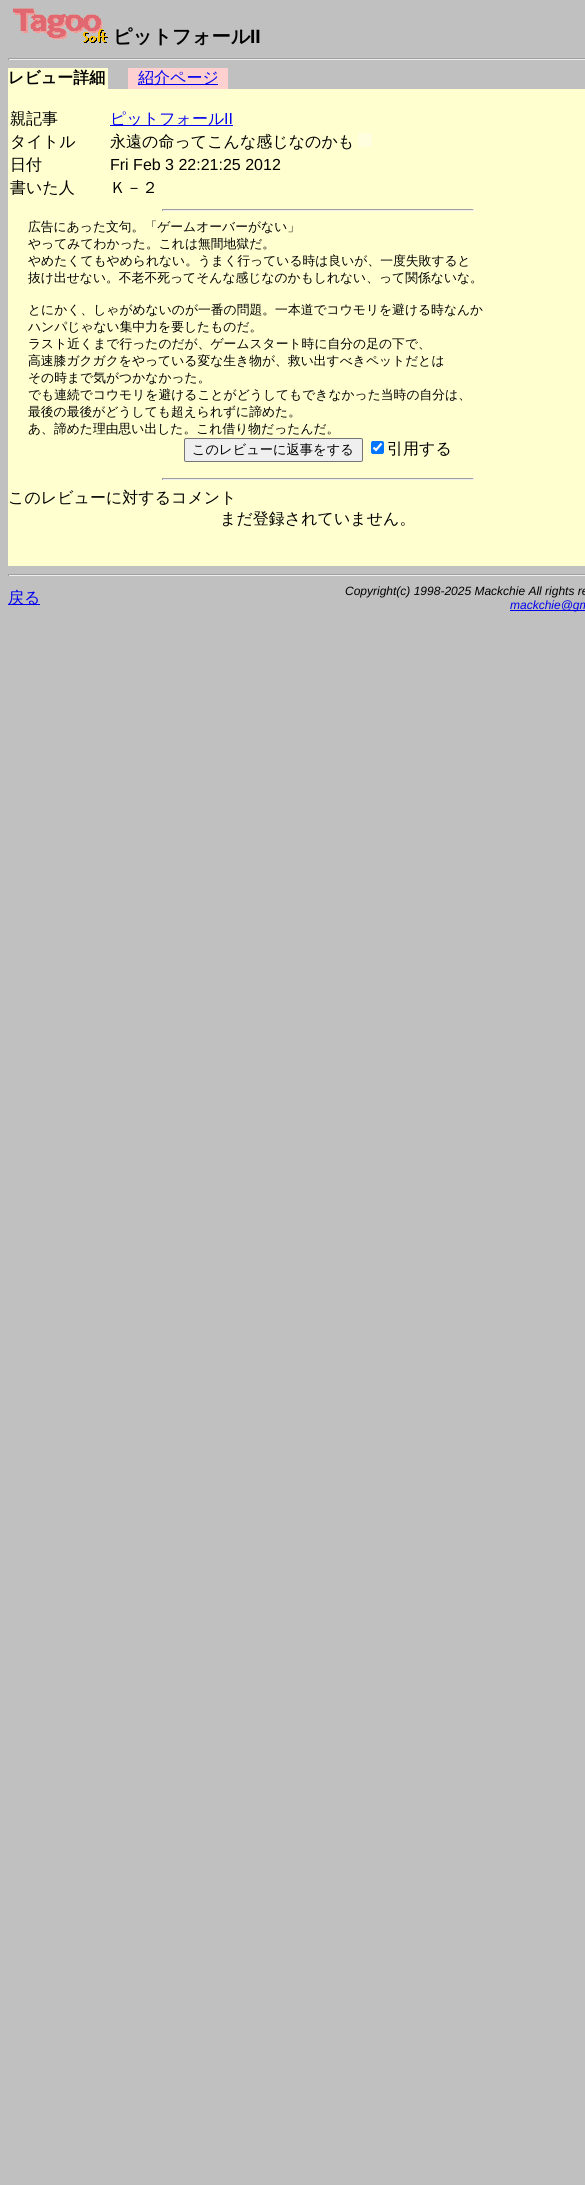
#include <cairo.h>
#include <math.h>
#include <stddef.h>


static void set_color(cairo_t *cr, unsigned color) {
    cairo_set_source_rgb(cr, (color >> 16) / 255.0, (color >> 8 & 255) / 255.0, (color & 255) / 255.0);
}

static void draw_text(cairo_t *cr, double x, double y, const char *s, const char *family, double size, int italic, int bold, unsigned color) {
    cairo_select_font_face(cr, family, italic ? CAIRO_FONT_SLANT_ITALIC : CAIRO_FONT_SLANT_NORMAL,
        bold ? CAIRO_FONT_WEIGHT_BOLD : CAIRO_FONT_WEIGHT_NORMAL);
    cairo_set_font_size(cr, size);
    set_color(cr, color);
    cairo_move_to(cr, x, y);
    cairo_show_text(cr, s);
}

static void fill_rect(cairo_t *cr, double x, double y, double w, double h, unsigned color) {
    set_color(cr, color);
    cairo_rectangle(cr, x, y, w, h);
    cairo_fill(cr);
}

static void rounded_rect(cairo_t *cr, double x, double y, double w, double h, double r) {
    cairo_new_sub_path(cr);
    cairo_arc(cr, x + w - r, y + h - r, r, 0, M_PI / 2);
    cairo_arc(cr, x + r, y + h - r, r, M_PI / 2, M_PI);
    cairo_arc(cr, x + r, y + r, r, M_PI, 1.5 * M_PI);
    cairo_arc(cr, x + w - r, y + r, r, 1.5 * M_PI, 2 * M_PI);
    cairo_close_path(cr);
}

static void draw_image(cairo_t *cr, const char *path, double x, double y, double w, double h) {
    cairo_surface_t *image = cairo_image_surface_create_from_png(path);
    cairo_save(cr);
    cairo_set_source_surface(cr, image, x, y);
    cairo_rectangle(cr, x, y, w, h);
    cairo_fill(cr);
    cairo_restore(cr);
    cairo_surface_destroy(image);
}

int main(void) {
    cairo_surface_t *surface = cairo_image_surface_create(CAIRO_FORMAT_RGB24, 585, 2185);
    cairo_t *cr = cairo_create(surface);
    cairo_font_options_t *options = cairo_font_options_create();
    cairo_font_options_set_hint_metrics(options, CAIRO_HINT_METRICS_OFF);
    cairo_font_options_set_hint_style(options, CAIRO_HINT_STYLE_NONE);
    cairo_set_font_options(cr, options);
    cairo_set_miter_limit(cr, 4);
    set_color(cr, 0xC0C0C0);
    cairo_paint(cr);
    draw_image(cr, "assets/img1.png", 13, 8, 95, 35);
    draw_text(cr, 113, 43, "ピットフォール", "WenQuanYi Zen Hei", 19.25, 0, 1, 0x000000);
    draw_text(cr, 250, 43, "II", "Liberation Sans", 19.25, 0, 1, 0x000000);
    fill_rect(cr, 8, 58, 577, 1, 0x9F9F9F);
    fill_rect(cr, 8, 59, 577, 1, 0xEEEEEE);
    fill_rect(cr, 8, 58, 1, 2, 0x9F9F9F);
    fill_rect(cr, 8, 68, 100, 21, 0xFFFFD0);
    draw_text(cr, 8, 83, "レビュー詳細", "WenQuanYi Zen Hei", 16, 0, 1, 0x000000);
    fill_rect(cr, 128, 68, 100, 21, 0xFFD0D0);
    fill_rect(cr, 138, 84, 80, 1, 0x0000EE);
    draw_text(cr, 138, 83, "紹介ページ", "WenQuanYi Zen Hei Medium", 16, 0, 0, 0x0000EE);
    fill_rect(cr, 8, 89, 577, 477, 0xFFFFD0);
    draw_text(cr, 10, 124, "親記事", "WenQuanYi Zen Hei Medium", 16, 0, 0, 0x000000);
    fill_rect(cr, 110, 125, 123, 1, 0x0000EE);
    draw_text(cr, 110, 124, "ピットフォール", "WenQuanYi Zen Hei Medium", 16, 0, 0, 0x0000EE);
    draw_text(cr, 224, 124, "II", "Liberation Sans", 16, 0, 0, 0x0000EE);
    draw_text(cr, 10, 147, "タイトル", "WenQuanYi Zen Hei Medium", 16, 0, 0, 0x000000);
    draw_text(cr, 110, 147, "永遠の命ってこんな感じなのかも", "WenQuanYi Zen Hei Medium", 16, 0, 0, 0x000000);
    fill_rect(cr, 358, 133, 14, 14, 0xFFFFDF);
    draw_text(cr, 10, 170, "日付", "WenQuanYi Zen Hei Medium", 16, 0, 0, 0x000000);
    draw_text(cr, 110, 170, "Fri Feb 3 22:21:25 2012", "Liberation Sans", 16, 0, 0, 0x000000);
    draw_text(cr, 10, 193, "書いた人", "WenQuanYi Zen Hei Medium", 16, 0, 0, 0x000000);
    draw_text(cr, 110, 193, "Ｋ－２", "WenQuanYi Zen Hei Medium", 16, 0, 0, 0x000000);
    fill_rect(cr, 162, 209, 312, 1, 0x9F9F9F);
    fill_rect(cr, 473, 209, 1, 2, 0xEEEEEE);
    fill_rect(cr, 162, 210, 312, 1, 0xEEEEEE);
    fill_rect(cr, 162, 209, 1, 2, 0x9F9F9F);
    draw_text(cr, 28, 231, "広告にあった文句。「ゲームオーバーがない」", "WenQuanYi Zen Hei Medium", 12.8, 0, 0, 0x000000);
    draw_text(cr, 28, 248, "やってみてわかった。これは無間地獄だ。", "WenQuanYi Zen Hei Medium", 12.8, 0, 0, 0x000000);
    draw_text(cr, 28, 265, "やめたくてもやめられない。うまく行っている時は良いが、一度失敗すると", "WenQuanYi Zen Hei Medium", 12.8, 0, 0, 0x000000);
    draw_text(cr, 28, 282, "抜け出せない。不老不死ってそんな感じなのかもしれない、って関係ないな。", "WenQuanYi Zen Hei Medium", 12.8, 0, 0, 0x000000);
    draw_text(cr, 28, 314, "とにかく、しゃがめないのが一番の問題。一本道でコウモリを避ける時なんか", "WenQuanYi Zen Hei Medium", 12.8, 0, 0, 0x000000);
    draw_text(cr, 28, 331, "ハンパじゃない集中力を要したものだ。", "WenQuanYi Zen Hei Medium", 12.8, 0, 0, 0x000000);
    draw_text(cr, 28, 348, "ラスト近くまで行ったのだが、ゲームスタート時に自分の足の下で、", "WenQuanYi Zen Hei Medium", 12.8, 0, 0, 0x000000);
    draw_text(cr, 28, 365, "高速膝ガクガクをやっている変な生き物が、救い出すべきペットだとは", "WenQuanYi Zen Hei Medium", 12.8, 0, 0, 0x000000);
    draw_text(cr, 28, 382, "その時まで気がつかなかった。", "WenQuanYi Zen Hei Medium", 12.8, 0, 0, 0x000000);
    draw_text(cr, 28, 399, "でも連続でコウモリを避けることがどうしてもできなかった当時の自分は、", "WenQuanYi Zen Hei Medium", 12.8, 0, 0, 0x000000);
    draw_text(cr, 28, 416, "最後の最後がどうしても超えられずに諦めた。", "WenQuanYi Zen Hei Medium", 12.8, 0, 0, 0x000000);
    draw_text(cr, 28, 433, "あ、諦めた理由思い出した。これ借り物だったんだ。", "WenQuanYi Zen Hei Medium", 12.8, 0, 0, 0x000000);
    set_color(cr, 0xEFEFEF);
    rounded_rect(cr, 184.5, 438.5, 178, 23, 1.5);
    cairo_fill_preserve(cr);
    set_color(cr, 0x767676);
    cairo_set_line_width(cr, 1);
    cairo_stroke(cr);
    draw_text(cr, 192, 454, "このレビューに返事をする", "WenQuanYi Zen Hei Medium", 13.25, 0, 0, 0x000000);
    set_color(cr, 0x0075FF);
    rounded_rect(cr, 371, 441, 13, 13, 2);
    cairo_fill(cr);
    cairo_new_path(cr);
    cairo_move_to(cr, 373.5, 447.5);
    cairo_line_to(cr, 376, 450);
    cairo_line_to(cr, 381.5, 443.5);
    set_color(cr, 0xFFFFFF);
    cairo_set_line_width(cr, 2.1);
    cairo_stroke(cr);
    draw_text(cr, 387, 454, "引用する", "WenQuanYi Zen Hei Medium", 16, 0, 0, 0x000000);
    fill_rect(cr, 162, 478, 312, 1, 0x9F9F9F);
    fill_rect(cr, 473, 478, 1, 2, 0xEEEEEE);
    fill_rect(cr, 162, 479, 312, 1, 0xEEEEEE);
    fill_rect(cr, 162, 478, 1, 2, 0x9F9F9F);
    draw_text(cr, 8, 503, "このレビューに対するコメント", "WenQuanYi Zen Hei Medium", 16, 0, 0, 0x000000);
    draw_text(cr, 220, 524, "まだ登録されていません。", "WenQuanYi Zen Hei Medium", 16, 0, 0, 0x000000);
    fill_rect(cr, 8, 574, 577, 1, 0x9F9F9F);
    fill_rect(cr, 8, 575, 577, 1, 0xEEEEEE);
    fill_rect(cr, 8, 574, 1, 2, 0x9F9F9F);
    fill_rect(cr, 8, 604, 32, 1, 0x0000EE);
    draw_text(cr, 8, 603, "戻る", "WenQuanYi Zen Hei Medium", 16, 0, 0, 0x0000EE);
    draw_text(cr, 345, 595, "Copyright(c) 1998-2025 Mackchie All rights re", "Liberation Sans", 12, 1, 0, 0x000000);
    fill_rect(cr, 510, 610, 75, 1, 0x0000EE);
    draw_text(cr, 510, 609, "mackchie@gm", "Liberation Sans", 12, 1, 0, 0x0000EE);
    cairo_surface_write_to_png(surface, "output.png");
    cairo_font_options_destroy(options);
    cairo_destroy(cr);
    cairo_surface_destroy(surface);
    return 0;
}
